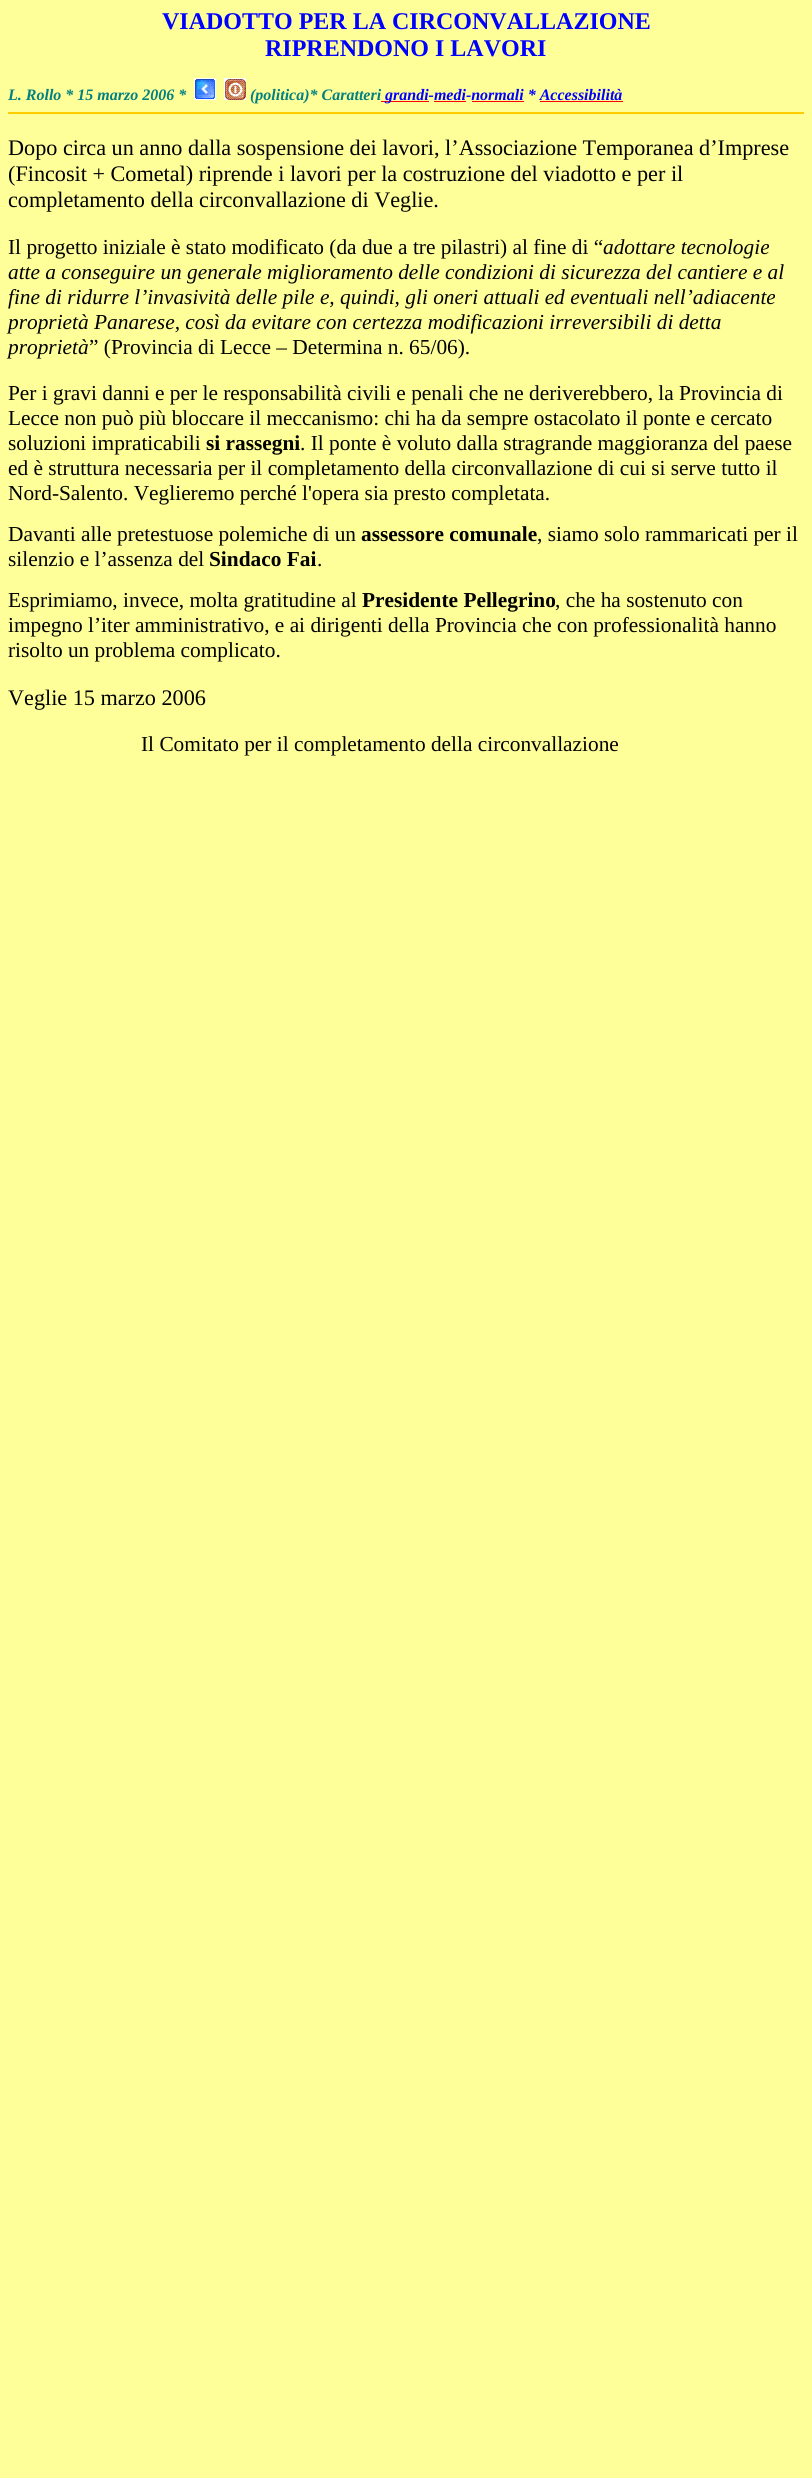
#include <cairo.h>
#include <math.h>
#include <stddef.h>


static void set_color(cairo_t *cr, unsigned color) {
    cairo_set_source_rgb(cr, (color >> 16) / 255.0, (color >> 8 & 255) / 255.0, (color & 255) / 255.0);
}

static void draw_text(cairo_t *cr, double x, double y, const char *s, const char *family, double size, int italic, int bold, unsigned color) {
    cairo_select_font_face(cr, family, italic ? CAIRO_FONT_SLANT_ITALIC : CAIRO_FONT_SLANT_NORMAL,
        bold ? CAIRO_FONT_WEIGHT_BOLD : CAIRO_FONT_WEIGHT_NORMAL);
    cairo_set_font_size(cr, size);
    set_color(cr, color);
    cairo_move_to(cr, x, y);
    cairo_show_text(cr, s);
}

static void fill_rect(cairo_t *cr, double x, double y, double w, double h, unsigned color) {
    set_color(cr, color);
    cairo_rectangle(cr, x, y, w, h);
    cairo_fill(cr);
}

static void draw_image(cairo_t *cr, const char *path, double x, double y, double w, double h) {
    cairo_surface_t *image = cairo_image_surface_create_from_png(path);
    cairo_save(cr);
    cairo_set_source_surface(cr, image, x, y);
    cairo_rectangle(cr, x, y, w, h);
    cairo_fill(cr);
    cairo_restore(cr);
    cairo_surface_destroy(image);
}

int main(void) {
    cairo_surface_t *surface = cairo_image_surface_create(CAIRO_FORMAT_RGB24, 812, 2478);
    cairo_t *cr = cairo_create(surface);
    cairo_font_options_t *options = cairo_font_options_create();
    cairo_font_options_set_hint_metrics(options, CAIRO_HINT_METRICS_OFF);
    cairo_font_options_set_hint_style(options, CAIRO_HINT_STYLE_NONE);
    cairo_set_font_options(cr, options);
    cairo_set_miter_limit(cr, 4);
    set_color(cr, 0xFFFF99);
    cairo_paint(cr);
    draw_text(cr, 162, 29, "VIADOTTO PER LA CIRCONVALLAZIONE", "Liberation Serif", 24, 0, 1, 0x0000FF);
    draw_text(cr, 265, 56, "RIPRENDONO I LAVORI", "Liberation Serif", 24, 0, 1, 0x0000FF);
    draw_text(cr, 8, 100, "L. Rollo * 15 marzo 2006 *", "Liberation Serif", 16, 1, 1, 0x008080);
    draw_image(cr, "assets/img1.png", 194, 78, 22, 22);
    draw_image(cr, "assets/img2.png", 224, 78, 22, 22);
    draw_text(cr, 250, 100, "(politica)* Caratteri", "Liberation Serif", 16, 1, 1, 0x008080);
    fill_rect(cr, 381, 101, 48, 1, 0xFF0000);
    draw_text(cr, 385, 100, "grandi-medi-normali * Accessibilità", "Liberation Serif", 16, 1, 1, 0x0000FF);
    fill_rect(cr, 434, 101, 32, 1, 0xFF0000);
    fill_rect(cr, 472, 101, 52, 1, 0xFF0000);
    fill_rect(cr, 540, 101, 83, 1, 0xFF0000);
    fill_rect(cr, 8, 112, 796, 2, 0xFFCC00);
    draw_text(cr, 8, 155, "Dopo circa un anno dalla sospensione dei lavori, l’Associazione Temporanea d’Imprese", "Liberation Serif", 22.2, 0, 0, 0x000000);
    draw_text(cr, 8, 181, "(Fincosit + Cometal) riprende i lavori per la costruzione del viadotto e per il", "Liberation Serif", 22.2, 0, 0, 0x000000);
    draw_text(cr, 8, 207, "completamento della circonvallazione di Veglie.", "Liberation Serif", 22.2, 0, 0, 0x000000);
    draw_text(cr, 8, 254, "Il progetto iniziale è stato modificato (da due a tre pilastri) al fine di “", "Liberation Serif", 21.35, 0, 0, 0x000000);
    draw_text(cr, 603, 254, "adottare tecnologie", "Liberation Serif", 21.35, 1, 0, 0x000000);
    draw_text(cr, 8, 279, "atte a conseguire un generale miglioramento delle condizioni di sicurezza del cantiere e al", "Liberation Serif", 21.35, 1, 0, 0x000000);
    draw_text(cr, 8, 304, "fine di ridurre l’invasività delle pile e, quindi, gli oneri attuali ed eventuali nell’adiacente", "Liberation Serif", 21.35, 1, 0, 0x000000);
    draw_text(cr, 8, 329, "proprietà Panarese, così da evitare con certezza modificazioni irreversibili di detta", "Liberation Serif", 21.35, 1, 0, 0x000000);
    draw_text(cr, 8, 354, "proprietà", "Liberation Serif", 21.35, 1, 0, 0x000000);
    draw_text(cr, 89, 354, "” (Provincia di Lecce – Determina n. 65/06).", "Liberation Serif", 21.35, 0, 0, 0x000000);
    draw_text(cr, 8, 400, "Per i gravi danni e per le responsabilità civili e penali che ne deriverebbero, la Provincia di", "Liberation Serif", 21.35, 0, 0, 0x000000);
    draw_text(cr, 8, 425, "Lecce non può più bloccare il meccanismo: chi ha da sempre ostacolato il ponte e cercato", "Liberation Serif", 21.35, 0, 0, 0x000000);
    draw_text(cr, 8, 450, "soluzioni impraticabili", "Liberation Serif", 21.35, 0, 0, 0x000000);
    draw_text(cr, 206, 450, "si rassegni", "Liberation Serif", 21.35, 0, 1, 0x000000);
    draw_text(cr, 300, 450, ". Il ponte è voluto dalla stragrande maggioranza del paese", "Liberation Serif", 21.35, 0, 0, 0x000000);
    draw_text(cr, 8, 475, "ed è struttura necessaria per il completamento della circonvallazione di cui si serve tutto il", "Liberation Serif", 21.35, 0, 0, 0x000000);
    draw_text(cr, 8, 500, "Nord-Salento. Veglieremo perché l'opera sia presto completata.", "Liberation Serif", 21.35, 0, 0, 0x000000);
    draw_text(cr, 8, 541, "Davanti alle pretestuose polemiche di un", "Liberation Serif", 21.35, 0, 0, 0x000000);
    draw_text(cr, 361, 541, "assessore comunale", "Liberation Serif", 21.35, 0, 1, 0x000000);
    draw_text(cr, 537, 541, ", siamo solo rammaricati per il", "Liberation Serif", 21.35, 0, 0, 0x000000);
    draw_text(cr, 8, 566, "silenzio e l’assenza del", "Liberation Serif", 21.35, 0, 0, 0x000000);
    draw_text(cr, 209, 566, "Sindaco Fai", "Liberation Serif", 21.35, 0, 1, 0x000000);
    draw_text(cr, 317, 566, ".", "Liberation Serif", 21.35, 0, 0, 0x000000);
    draw_text(cr, 8, 607, "Esprimiamo, invece, molta gratitudine al", "Liberation Serif", 21.35, 0, 0, 0x000000);
    draw_text(cr, 362, 607, "Presidente Pellegrino", "Liberation Serif", 21.35, 0, 1, 0x000000);
    draw_text(cr, 555, 607, ", che ha sostenuto con", "Liberation Serif", 21.35, 0, 0, 0x000000);
    draw_text(cr, 8, 632, "impegno l’iter amministrativo, e ai dirigenti della Provincia che con professionalità hanno", "Liberation Serif", 21.35, 0, 0, 0x000000);
    draw_text(cr, 8, 657, "risolto un problema complicato.", "Liberation Serif", 21.35, 0, 0, 0x000000);
    draw_text(cr, 8, 705, "Veglie 15 marzo 2006", "Liberation Serif", 22.2, 0, 0, 0x000000);
    draw_text(cr, 141, 751, "Il Comitato per il completamento della circonvallazione", "Liberation Serif", 21.35, 0, 0, 0x000000);
    cairo_surface_write_to_png(surface, "output.png");
    cairo_font_options_destroy(options);
    cairo_destroy(cr);
    cairo_surface_destroy(surface);
    return 0;
}
